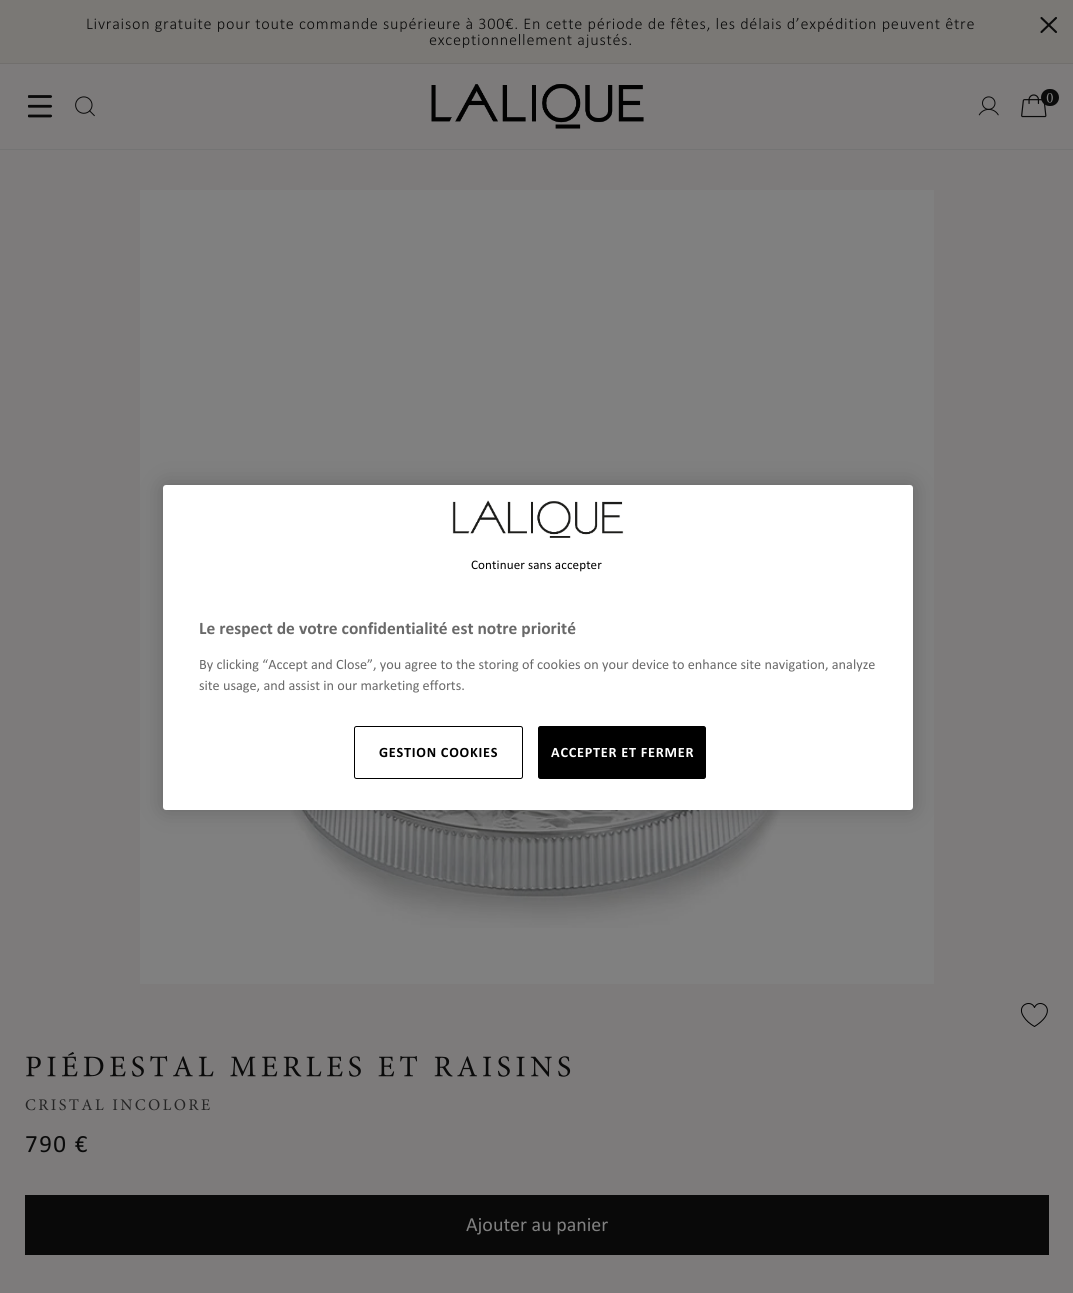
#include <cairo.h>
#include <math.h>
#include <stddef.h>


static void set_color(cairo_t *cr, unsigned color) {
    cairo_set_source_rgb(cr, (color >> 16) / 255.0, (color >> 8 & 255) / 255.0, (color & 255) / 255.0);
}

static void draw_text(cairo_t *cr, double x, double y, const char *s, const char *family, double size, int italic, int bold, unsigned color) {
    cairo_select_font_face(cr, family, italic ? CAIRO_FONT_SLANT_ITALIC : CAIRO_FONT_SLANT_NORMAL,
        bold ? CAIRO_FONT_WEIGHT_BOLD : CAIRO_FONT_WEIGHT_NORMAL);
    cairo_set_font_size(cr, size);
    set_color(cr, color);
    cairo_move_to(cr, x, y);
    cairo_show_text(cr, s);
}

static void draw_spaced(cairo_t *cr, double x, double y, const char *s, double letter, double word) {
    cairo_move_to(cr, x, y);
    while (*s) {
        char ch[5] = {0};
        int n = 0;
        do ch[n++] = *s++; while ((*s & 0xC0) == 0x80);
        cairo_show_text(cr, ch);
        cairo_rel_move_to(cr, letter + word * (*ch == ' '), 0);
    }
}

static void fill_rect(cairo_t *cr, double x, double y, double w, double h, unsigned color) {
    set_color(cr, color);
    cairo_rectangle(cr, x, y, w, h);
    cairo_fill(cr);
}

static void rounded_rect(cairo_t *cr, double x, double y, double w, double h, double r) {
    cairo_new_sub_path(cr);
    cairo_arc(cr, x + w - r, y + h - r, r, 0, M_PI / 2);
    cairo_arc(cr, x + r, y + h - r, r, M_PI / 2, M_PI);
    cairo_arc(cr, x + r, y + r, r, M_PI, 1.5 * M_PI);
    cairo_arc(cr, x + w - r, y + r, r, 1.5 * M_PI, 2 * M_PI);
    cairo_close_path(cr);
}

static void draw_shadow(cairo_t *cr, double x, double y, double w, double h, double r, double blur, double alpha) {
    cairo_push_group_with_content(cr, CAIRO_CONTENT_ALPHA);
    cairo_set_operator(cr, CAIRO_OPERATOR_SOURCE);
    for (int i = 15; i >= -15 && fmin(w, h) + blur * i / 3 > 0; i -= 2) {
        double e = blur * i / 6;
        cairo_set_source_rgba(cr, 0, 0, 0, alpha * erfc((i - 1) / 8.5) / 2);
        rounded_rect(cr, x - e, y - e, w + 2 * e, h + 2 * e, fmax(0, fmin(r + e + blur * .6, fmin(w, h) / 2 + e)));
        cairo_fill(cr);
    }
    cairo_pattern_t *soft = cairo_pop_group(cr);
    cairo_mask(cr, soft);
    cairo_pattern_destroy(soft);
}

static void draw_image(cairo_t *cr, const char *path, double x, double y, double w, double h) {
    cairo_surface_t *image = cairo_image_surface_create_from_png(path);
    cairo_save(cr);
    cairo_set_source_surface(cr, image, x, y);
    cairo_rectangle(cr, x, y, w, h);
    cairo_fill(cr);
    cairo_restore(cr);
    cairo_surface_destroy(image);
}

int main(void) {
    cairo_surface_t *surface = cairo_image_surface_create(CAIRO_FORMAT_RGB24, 1073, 1293);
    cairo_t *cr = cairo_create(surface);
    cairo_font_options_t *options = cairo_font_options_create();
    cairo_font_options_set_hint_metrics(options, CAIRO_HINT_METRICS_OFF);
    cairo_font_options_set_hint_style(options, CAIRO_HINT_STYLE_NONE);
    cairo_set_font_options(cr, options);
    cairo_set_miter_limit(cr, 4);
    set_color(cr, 0x7D7B7B);
    cairo_paint(cr);
    fill_rect(cr, 0, 0, 1073, 63, 0x7A7875);
    fill_rect(cr, 0, 63, 1073, 1, 0x716F6D);
    cairo_select_font_face(cr, "Calibri Light", CAIRO_FONT_SLANT_NORMAL, CAIRO_FONT_WEIGHT_NORMAL);
    cairo_set_font_size(cr, 16.25);
    set_color(cr, 0x0B0B0B);
    draw_spaced(cr, 86, 29, "Livraison gratuite pour toute commande supérieure à 300€. En cette période de fêtes, les délais d’expédition peuvent être", 0.75, 0);
    draw_spaced(cr, 429, 45, "exceptionnellement ajustés.", 0.75, 0);
    cairo_new_path(cr);
    cairo_move_to(cr, 1056, 18);
    cairo_line_to(cr, 1041.5, 32);
    cairo_move_to(cr, 1056, 32);
    cairo_line_to(cr, 1041.5, 18);
    cairo_set_line_width(cr, 2.1);
    cairo_set_line_cap(cr, CAIRO_LINE_CAP_ROUND);
    cairo_set_line_join(cr, CAIRO_LINE_JOIN_ROUND);
    cairo_stroke(cr);
    fill_rect(cr, 0, 149, 1073, 1, 0x747474);
    draw_image(cr, "assets/img1.png", 28, 95, 25, 23);
    draw_image(cr, "assets/img2.png", 75, 96, 20, 21);
    draw_image(cr, "assets/img3.png", 431, 84, 213, 45);
    draw_image(cr, "assets/img4.png", 978, 96, 21, 20);
    draw_image(cr, "assets/img5.png", 1021, 94, 26, 24);
    set_color(cr, 0x0B0B0B);
    rounded_rect(cr, 1041, 89, 18, 17, 8.5);
    cairo_fill(cr);
    draw_image(cr, "assets/img6.png", 1046, 93, 7, 10);
    fill_rect(cr, 140, 190, 794, 794, 0x808080);
    draw_image(cr, "assets/img8.png", 291, 810, 491, 118);
    set_color(cr, 0x000000);
    draw_shadow(cr, 163, 485, 750, 325, 3, 11, 0.2);
    set_color(cr, 0xFFFFFF);
    rounded_rect(cr, 163, 485, 750, 325, 3);
    cairo_fill(cr);
    cairo_select_font_face(cr, "Calibri", CAIRO_FONT_SLANT_NORMAL, CAIRO_FONT_WEIGHT_NORMAL);
    cairo_set_font_size(cr, 13.1);
    set_color(cr, 0x000000);
    draw_spaced(cr, 471, 569, "Continuer sans accepter", 0.1, 0);
    draw_image(cr, "assets/img7.png", 452, 500, 172, 38);
    draw_text(cr, 199, 634, "Le respect de votre confidentialité est notre priorité", "Calibri", 17.5, 0, 1, 0x696969);
    draw_text(cr, 199, 669, "By clicking “Accept and Close”, you agree to the storing of cookies on your device to enhance site navigation, analyze", "Calibri", 14.25, 0, 0, 0x696969);
    draw_text(cr, 199, 690, "site usage, and assist in our marketing efforts.", "Calibri", 14.25, 0, 0, 0x696969);
    rounded_rect(cr, 354.5, 726.5, 168, 52, 2);
    set_color(cr, 0x000000);
    cairo_set_line_width(cr, 1);
    cairo_set_line_cap(cr, CAIRO_LINE_CAP_BUTT);
    cairo_set_line_join(cr, CAIRO_LINE_JOIN_MITER);
    cairo_stroke(cr);
    cairo_select_font_face(cr, "Calibri", CAIRO_FONT_SLANT_NORMAL, CAIRO_FONT_WEIGHT_BOLD);
    draw_spaced(cr, 379, 757, "GESTION COOKIES", 0.75, 0);
    rounded_rect(cr, 538.5, 726.5, 167, 52, 2);
    cairo_fill_preserve(cr);
    cairo_stroke(cr);
    set_color(cr, 0xFFFFFF);
    draw_spaced(cr, 551, 757, "ACCEPTER ET FERMER", 0.75, 0);
    cairo_new_path(cr);
    cairo_move_to(cr, 1034.5, 1026.5);
    cairo_curve_to(cr, 1030, 1024, 1026, 1020.5, 1023.5, 1016.5);
    cairo_curve_to(cr, 1016, 1005, 1031, 999, 1034.5, 1007.5);
    cairo_curve_to(cr, 1038, 999, 1052.5, 1005, 1045.5, 1016.5);
    cairo_curve_to(cr, 1043, 1020.5, 1038.5, 1024, 1034.5, 1026.5);
    cairo_close_path(cr);
    set_color(cr, 0x000000);
    cairo_set_line_cap(cr, CAIRO_LINE_CAP_ROUND);
    cairo_set_line_join(cr, CAIRO_LINE_JOIN_ROUND);
    cairo_stroke(cr);
    draw_image(cr, "assets/img9.png", 26, 1052, 545, 25);
    draw_image(cr, "assets/img10.png", 25, 1099, 185, 12);
    cairo_select_font_face(cr, "Calibri", CAIRO_FONT_SLANT_NORMAL, CAIRO_FONT_WEIGHT_NORMAL);
    cairo_set_font_size(cr, 25);
    set_color(cr, 0x0B0B0B);
    draw_spaced(cr, 25, 1152, "790 €", 1.5, 0);
    fill_rect(cr, 25, 1195, 1024, 60, 0x090909);
    draw_text(cr, 466, 1231, "Ajouter au panier", "Calibri", 20, 0, 0, 0x808080);
    cairo_surface_write_to_png(surface, "output.png");
    cairo_font_options_destroy(options);
    cairo_destroy(cr);
    cairo_surface_destroy(surface);
    return 0;
}
